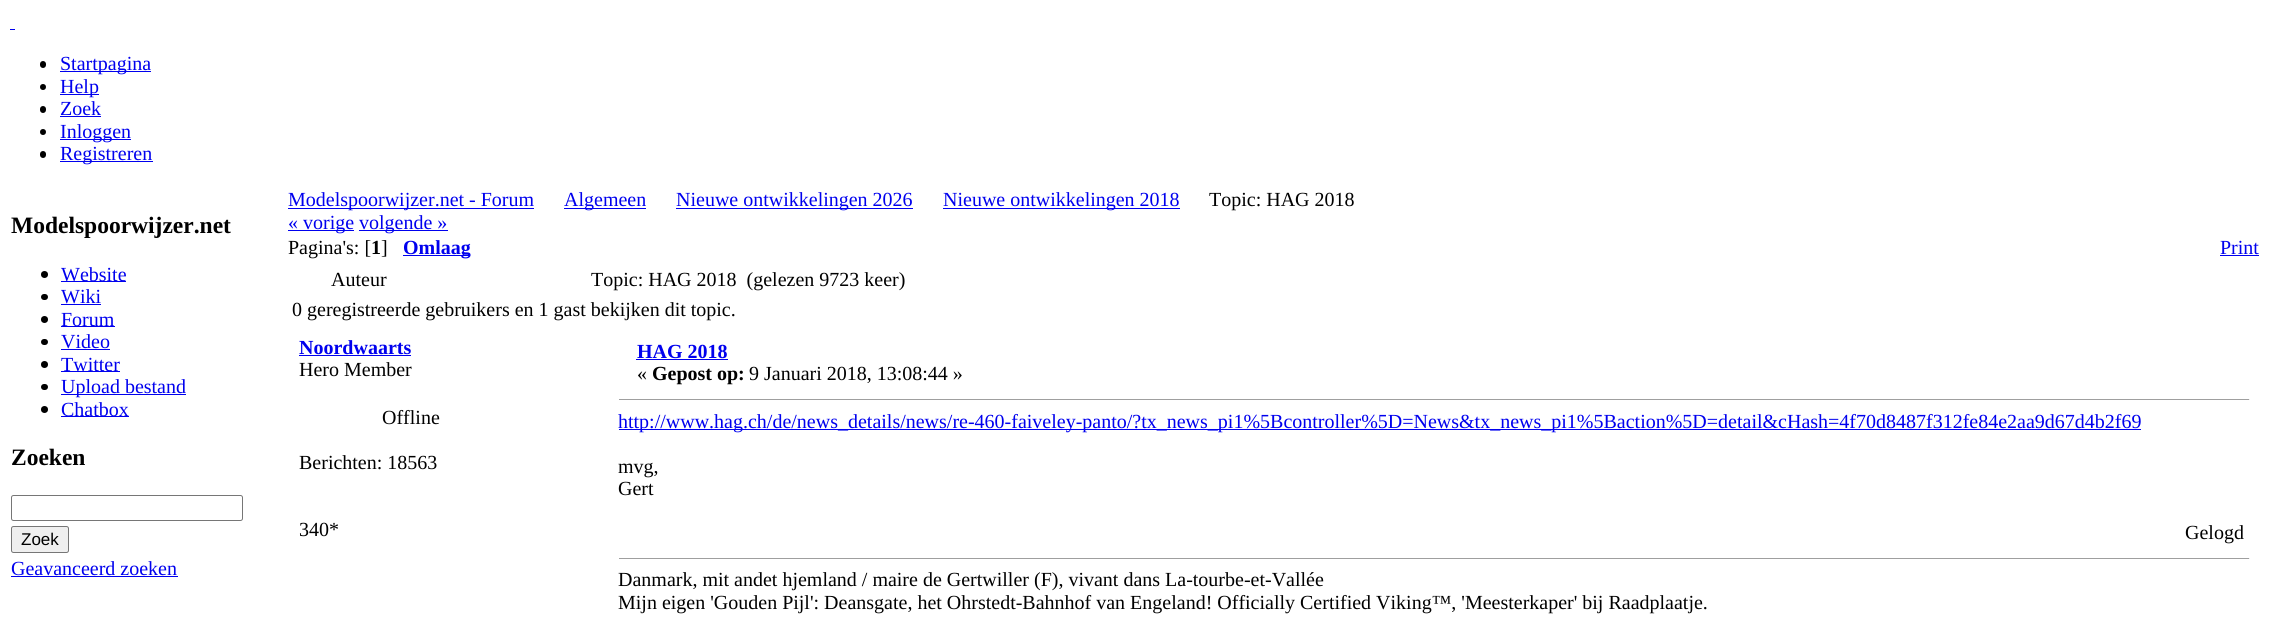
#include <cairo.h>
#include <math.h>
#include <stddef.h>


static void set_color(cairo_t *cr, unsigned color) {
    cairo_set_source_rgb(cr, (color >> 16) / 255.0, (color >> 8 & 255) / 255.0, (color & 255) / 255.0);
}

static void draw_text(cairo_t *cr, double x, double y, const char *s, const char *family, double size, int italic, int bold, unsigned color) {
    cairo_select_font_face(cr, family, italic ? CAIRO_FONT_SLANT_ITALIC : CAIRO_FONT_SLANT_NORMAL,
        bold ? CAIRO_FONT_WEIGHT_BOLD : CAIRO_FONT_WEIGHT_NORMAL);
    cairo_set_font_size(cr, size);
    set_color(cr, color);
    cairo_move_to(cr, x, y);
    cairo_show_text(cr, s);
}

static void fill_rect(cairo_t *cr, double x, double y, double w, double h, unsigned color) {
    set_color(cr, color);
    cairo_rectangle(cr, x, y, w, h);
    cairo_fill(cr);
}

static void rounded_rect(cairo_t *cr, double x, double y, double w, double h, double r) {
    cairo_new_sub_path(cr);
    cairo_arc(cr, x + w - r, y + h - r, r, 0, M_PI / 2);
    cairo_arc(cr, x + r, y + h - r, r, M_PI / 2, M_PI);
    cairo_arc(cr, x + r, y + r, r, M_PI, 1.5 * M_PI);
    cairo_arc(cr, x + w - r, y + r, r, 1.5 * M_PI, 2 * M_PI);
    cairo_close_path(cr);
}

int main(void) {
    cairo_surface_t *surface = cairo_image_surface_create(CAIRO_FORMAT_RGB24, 2270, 624);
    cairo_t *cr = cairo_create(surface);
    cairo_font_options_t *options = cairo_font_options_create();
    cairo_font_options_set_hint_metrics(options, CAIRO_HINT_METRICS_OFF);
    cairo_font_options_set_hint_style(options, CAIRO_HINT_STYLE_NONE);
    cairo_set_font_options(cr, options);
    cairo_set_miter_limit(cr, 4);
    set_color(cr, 0xFFFFFF);
    cairo_paint(cr);
    fill_rect(cr, 10, 29, 5, 1, 0x0000EE);
    set_color(cr, 0x000000);
    rounded_rect(cr, 40, 61, 6, 7, 3);
    cairo_fill(cr);
    fill_rect(cr, 60, 71, 91, 1, 0x0000EE);
    draw_text(cr, 60, 70, "Startpagina", "Liberation Serif", 20, 0, 0, 0x0000EE);
    set_color(cr, 0x000000);
    cairo_new_path(cr);
    cairo_arc(cr, 43, 87, 3, 0, 2 * M_PI);
    cairo_fill(cr);
    fill_rect(cr, 60, 94, 39, 1, 0x0000EE);
    draw_text(cr, 60, 93, "Help", "Liberation Serif", 20, 0, 0, 0x0000EE);
    set_color(cr, 0x000000);
    rounded_rect(cr, 40, 106, 6, 7, 3);
    cairo_fill(cr);
    draw_text(cr, 60, 115, "Zoek", "Liberation Serif", 20, 0, 0, 0x0000EE);
    fill_rect(cr, 60, 116, 41, 1, 0x0000EE);
    set_color(cr, 0x000000);
    cairo_new_path(cr);
    cairo_arc(cr, 43, 132, 3, 0, 2 * M_PI);
    cairo_fill(cr);
    fill_rect(cr, 60, 139, 71, 1, 0x0000EE);
    draw_text(cr, 60, 138, "Inloggen", "Liberation Serif", 20, 0, 0, 0x0000EE);
    set_color(cr, 0x000000);
    rounded_rect(cr, 40, 151, 6, 7, 3);
    cairo_fill(cr);
    fill_rect(cr, 60, 161, 93, 1, 0x0000EE);
    draw_text(cr, 60, 160, "Registreren", "Liberation Serif", 20, 0, 0, 0x0000EE);
    draw_text(cr, 11, 233, "Modelspoorwijzer.net", "Liberation Serif", 23.5, 0, 1, 0x000000);
    cairo_new_path(cr);
    cairo_arc(cr, 44.5, 274.5, 3.5, 0, 2 * M_PI);
    cairo_fill(cr);
    fill_rect(cr, 61, 281, 65, 1, 0x0000EE);
    draw_text(cr, 61, 281, "Website", "Liberation Serif", 20, 0, 0, 0x0000EE);
    set_color(cr, 0x000000);
    rounded_rect(cr, 41, 294, 7, 6, 3);
    cairo_fill(cr);
    draw_text(cr, 61, 303, "Wiki", "Liberation Serif", 20, 0, 0, 0x0000EE);
    fill_rect(cr, 61, 304, 40, 1, 0x0000EE);
    set_color(cr, 0x000000);
    cairo_new_path(cr);
    cairo_arc(cr, 44.5, 319.5, 3.5, 0, 2 * M_PI);
    cairo_fill(cr);
    fill_rect(cr, 61, 326, 54, 1, 0x0000EE);
    draw_text(cr, 61, 326, "Forum", "Liberation Serif", 20, 0, 0, 0x0000EE);
    set_color(cr, 0x000000);
    rounded_rect(cr, 41, 339, 7, 6, 3);
    cairo_fill(cr);
    draw_text(cr, 61, 348, "Video", "Liberation Serif", 20, 0, 0, 0x0000EE);
    fill_rect(cr, 61, 349, 49, 1, 0x0000EE);
    set_color(cr, 0x000000);
    cairo_new_path(cr);
    cairo_arc(cr, 44.5, 364.5, 3.5, 0, 2 * M_PI);
    cairo_fill(cr);
    fill_rect(cr, 61, 371, 59, 1, 0x0000EE);
    draw_text(cr, 61, 371, "Twitter", "Liberation Serif", 20, 0, 0, 0x0000EE);
    set_color(cr, 0x000000);
    rounded_rect(cr, 41, 384, 7, 6, 3);
    cairo_fill(cr);
    fill_rect(cr, 61, 394, 125, 1, 0x0000EE);
    draw_text(cr, 61, 393, "Upload bestand", "Liberation Serif", 20, 0, 0, 0x0000EE);
    set_color(cr, 0x000000);
    cairo_new_path(cr);
    cairo_arc(cr, 44.5, 409.5, 3.5, 0, 2 * M_PI);
    cairo_fill(cr);
    fill_rect(cr, 61, 416, 68, 1, 0x0000EE);
    draw_text(cr, 61, 416, "Chatbox", "Liberation Serif", 20, 0, 0, 0x0000EE);
    draw_text(cr, 11, 465, "Zoeken", "Liberation Serif", 23.5, 0, 1, 0x000000);
    rounded_rect(cr, 11.5, 495.5, 231, 25, 2);
    set_color(cr, 0x767676);
    cairo_set_line_width(cr, 1);
    cairo_stroke(cr);
    set_color(cr, 0xEFEFEF);
    rounded_rect(cr, 11.5, 526.5, 57, 26, 2);
    cairo_fill_preserve(cr);
    set_color(cr, 0x767676);
    cairo_stroke(cr);
    draw_text(cr, 21, 545, "Zoek", "Liberation Sans", 17, 0, 0, 0x000000);
    draw_text(cr, 11, 575, "Geavanceerd zoeken", "Liberation Serif", 20, 0, 0, 0x0000EE);
    fill_rect(cr, 11, 576, 167, 1, 0x0000EE);
    fill_rect(cr, 288, 208, 246, 1, 0x0000EE);
    draw_text(cr, 288, 206, "Modelspoorwijzer.net - Forum", "Liberation Serif", 20, 0, 0, 0x0000EE);
    fill_rect(cr, 564, 208, 82, 1, 0x0000EE);
    draw_text(cr, 564, 206, "Algemeen", "Liberation Serif", 20, 0, 0, 0x0000EE);
    fill_rect(cr, 676, 208, 237, 1, 0x0000EE);
    draw_text(cr, 676, 206, "Nieuwe ontwikkelingen 2026", "Liberation Serif", 20, 0, 0, 0x0000EE);
    fill_rect(cr, 943, 208, 237, 1, 0x0000EE);
    draw_text(cr, 943, 206, "Nieuwe ontwikkelingen 2018", "Liberation Serif", 20, 0, 0, 0x0000EE);
    draw_text(cr, 1209, 206, "Topic: HAG 2018", "Liberation Serif", 20, 0, 0, 0x000000);
    fill_rect(cr, 288, 230, 66, 1, 0x0000EE);
    draw_text(cr, 288, 229, "« vorige", "Liberation Serif", 20, 0, 0, 0x0000EE);
    fill_rect(cr, 359, 230, 89, 1, 0x0000EE);
    draw_text(cr, 359, 229, "volgende »", "Liberation Serif", 20, 0, 0, 0x0000EE);
    draw_text(cr, 288, 254, "Pagina's: [", "Liberation Serif", 20, 0, 0, 0x000000);
    draw_text(cr, 371, 254, "1", "Liberation Serif", 20, 0, 1, 0x000000);
    draw_text(cr, 381, 254, "]", "Liberation Serif", 20, 0, 0, 0x000000);
    fill_rect(cr, 403, 255, 67, 1, 0x0000EE);
    draw_text(cr, 403, 254, "Omlaag", "Liberation Serif", 20, 0, 1, 0x0000EE);
    draw_text(cr, 2220, 254, "Print", "Liberation Serif", 20, 0, 0, 0x0000EE);
    fill_rect(cr, 2220, 255, 39, 1, 0x0000EE);
    draw_text(cr, 331, 286, "Auteur", "Liberation Serif", 20, 0, 0, 0x000000);
    draw_text(cr, 591, 286, "Topic: HAG 2018  (gelezen 9723 keer)", "Liberation Serif", 20, 0, 0, 0x000000);
    draw_text(cr, 292, 316, "0 geregistreerde gebruikers en 1 gast bekijken dit topic.", "Liberation Serif", 20, 0, 0, 0x000000);
    draw_text(cr, 299, 354, "Noordwaarts", "Liberation Serif", 20, 0, 1, 0x0000EE);
    fill_rect(cr, 299, 355, 112, 1, 0x0000EE);
    draw_text(cr, 299, 376, "Hero Member", "Liberation Serif", 20, 0, 0, 0x000000);
    draw_text(cr, 382, 424, "Offline", "Liberation Serif", 20, 0, 0, 0x000000);
    draw_text(cr, 299, 469, "Berichten: 18563", "Liberation Serif", 20, 0, 0, 0x000000);
    draw_text(cr, 299, 536, "340*", "Liberation Serif", 20, 0, 0, 0x000000);
    draw_text(cr, 637, 358, "HAG 2018", "Liberation Serif", 20, 0, 1, 0x0000EE);
    fill_rect(cr, 636, 359, 92, 1, 0x0000EE);
    draw_text(cr, 637, 380, "«", "Liberation Serif", 20, 0, 0, 0x000000);
    draw_text(cr, 652, 380, "Gepost op:", "Liberation Serif", 20, 0, 1, 0x000000);
    draw_text(cr, 749, 380, "9 Januari 2018, 13:08:44 »", "Liberation Serif", 20, 0, 0, 0x000000);
    fill_rect(cr, 619, 399, 1631, 1, 0x9F9F9F);
    fill_rect(cr, 2249, 399, 1, 1, 0xEEEEEE);
    fill_rect(cr, 619, 429, 1522, 1, 0x0000EE);
    draw_text(cr, 618, 428, "http://www.hag.ch/de/news_details/news/re-460-faiveley-panto/?tx_news_pi1%5Bcontroller%5D=News&tx_news_pi1%5Baction%5D=detail&cHash=4f70d8487f312fe84e2aa9d67d4b2f69", "Liberation Serif", 20, 0, 0, 0x0000EE);
    draw_text(cr, 618, 473, "mvg,", "Liberation Serif", 20, 0, 0, 0x000000);
    draw_text(cr, 618, 495, "Gert", "Liberation Serif", 20, 0, 0, 0x000000);
    draw_text(cr, 2185, 539, "Gelogd", "Liberation Serif", 20, 0, 0, 0x000000);
    fill_rect(cr, 619, 558, 1631, 1, 0x9F9F9F);
    fill_rect(cr, 2249, 558, 1, 1, 0xEEEEEE);
    draw_text(cr, 618, 586, "Danmark, mit andet hjemland / maire de Gertwiller (F), vivant dans La-tourbe-et-Vallée", "Liberation Serif", 20, 0, 0, 0x000000);
    draw_text(cr, 618, 609, "Mijn eigen 'Gouden Pijl': Deansgate, het Ohrstedt-Bahnhof van Engeland! Officially Certified Viking™, 'Meesterkaper' bij Raadplaatje.", "Liberation Serif", 20, 0, 0, 0x000000);
    cairo_surface_write_to_png(surface, "output.png");
    cairo_font_options_destroy(options);
    cairo_destroy(cr);
    cairo_surface_destroy(surface);
    return 0;
}
